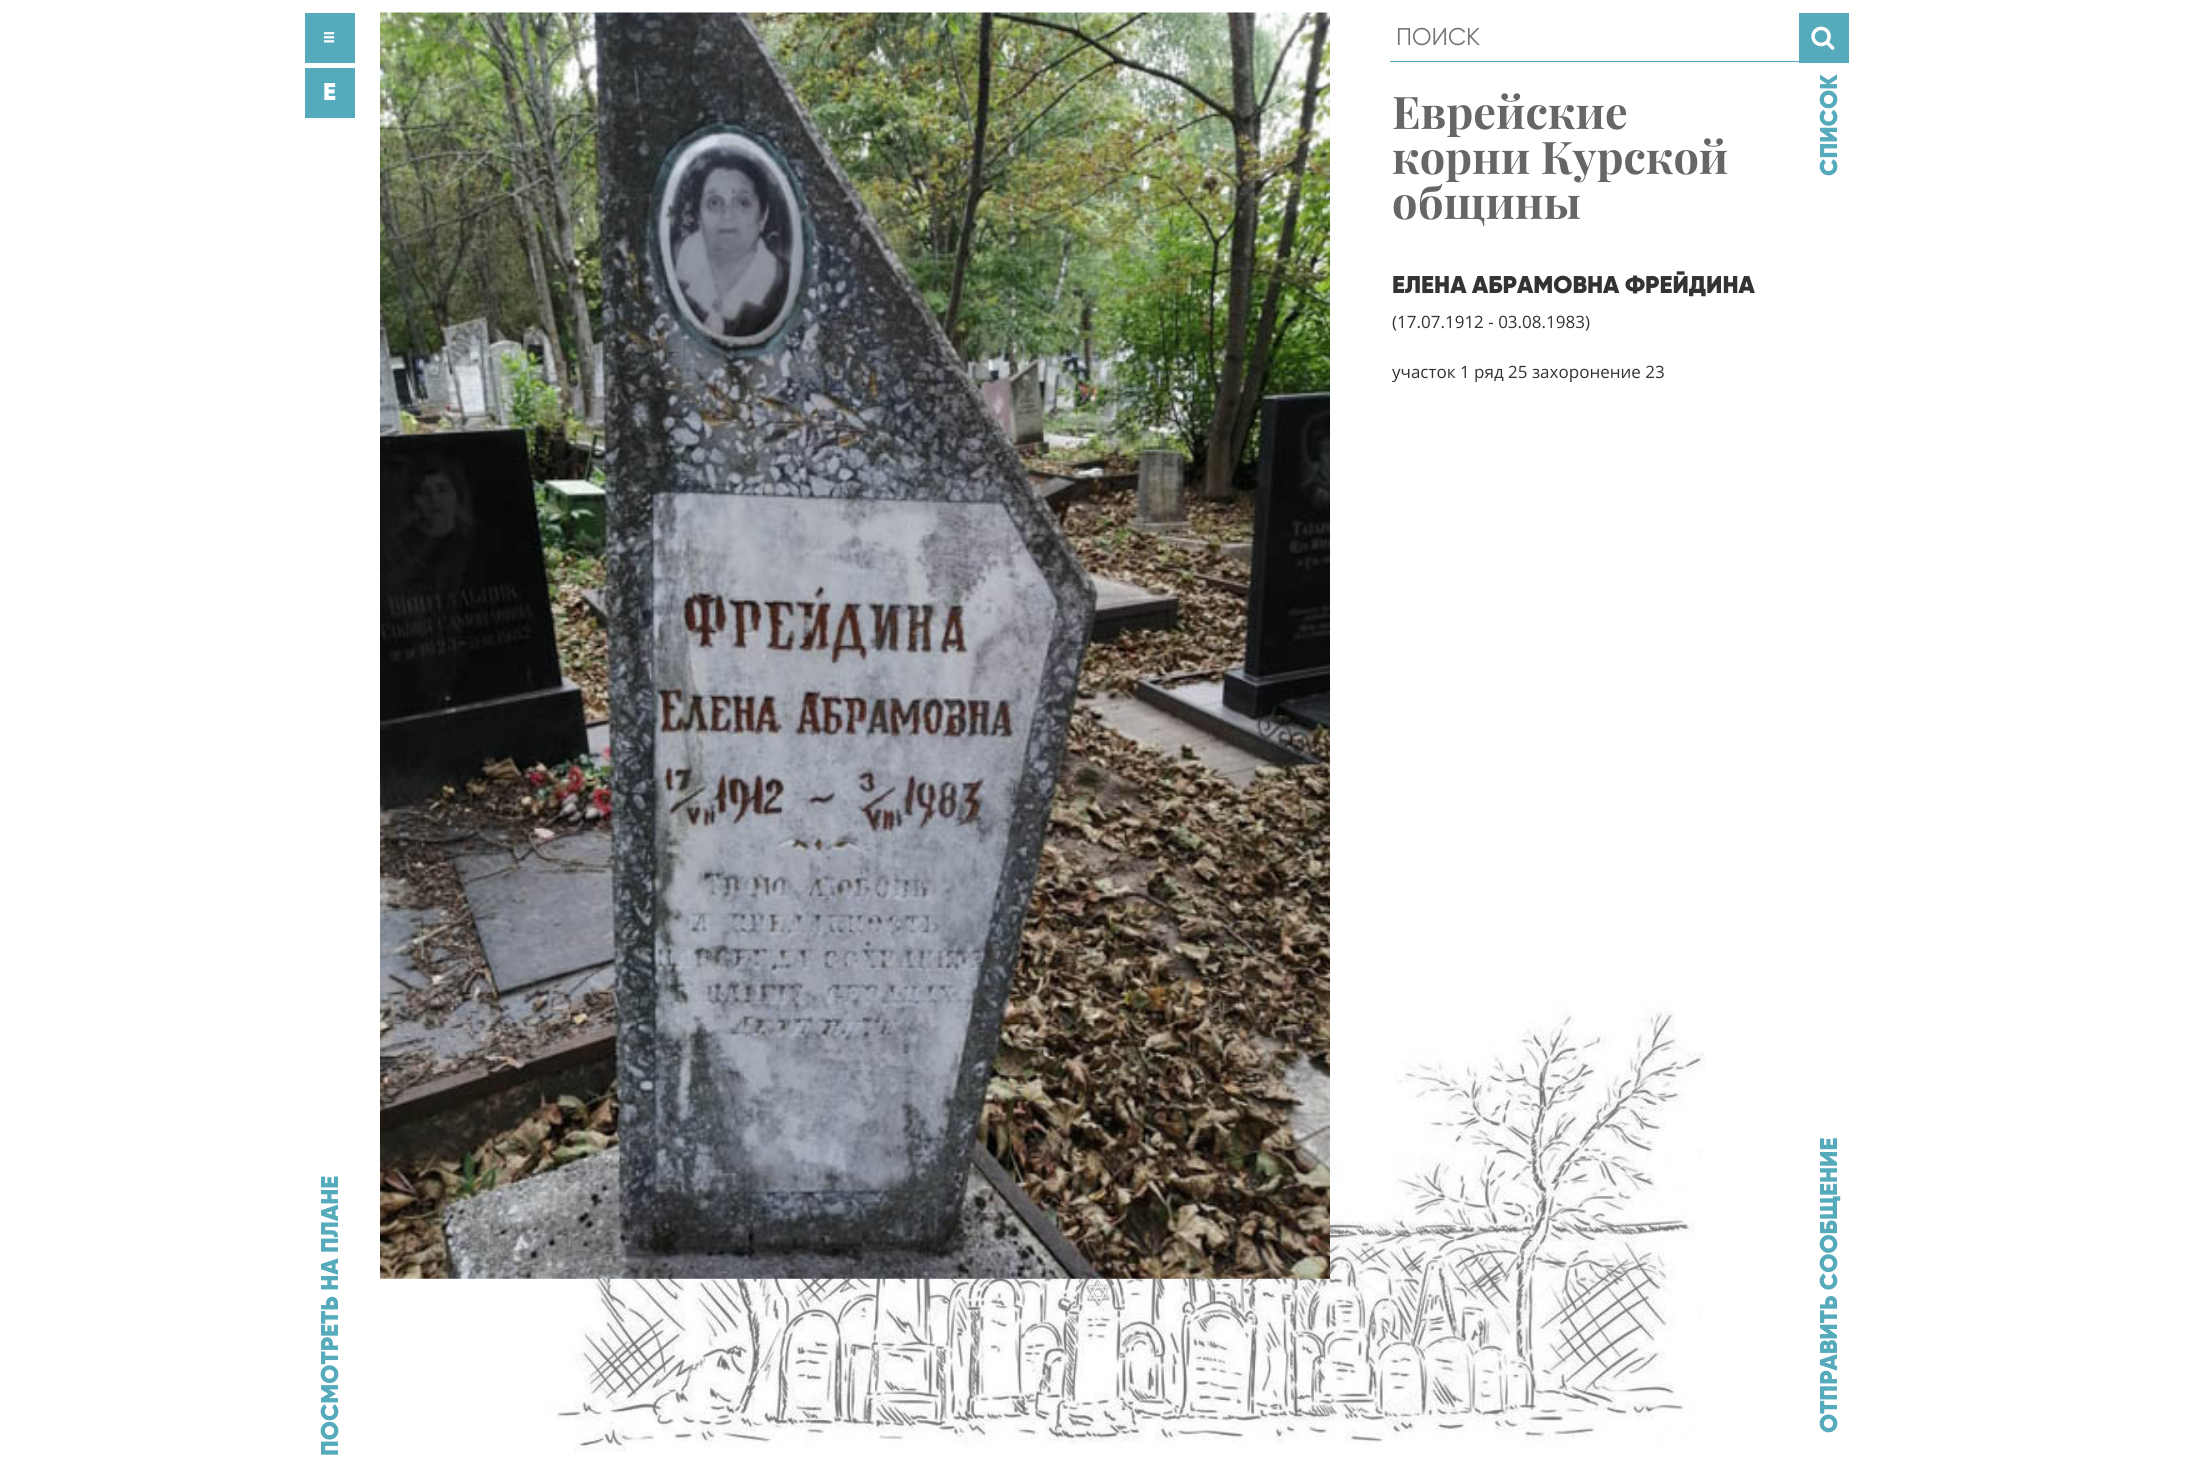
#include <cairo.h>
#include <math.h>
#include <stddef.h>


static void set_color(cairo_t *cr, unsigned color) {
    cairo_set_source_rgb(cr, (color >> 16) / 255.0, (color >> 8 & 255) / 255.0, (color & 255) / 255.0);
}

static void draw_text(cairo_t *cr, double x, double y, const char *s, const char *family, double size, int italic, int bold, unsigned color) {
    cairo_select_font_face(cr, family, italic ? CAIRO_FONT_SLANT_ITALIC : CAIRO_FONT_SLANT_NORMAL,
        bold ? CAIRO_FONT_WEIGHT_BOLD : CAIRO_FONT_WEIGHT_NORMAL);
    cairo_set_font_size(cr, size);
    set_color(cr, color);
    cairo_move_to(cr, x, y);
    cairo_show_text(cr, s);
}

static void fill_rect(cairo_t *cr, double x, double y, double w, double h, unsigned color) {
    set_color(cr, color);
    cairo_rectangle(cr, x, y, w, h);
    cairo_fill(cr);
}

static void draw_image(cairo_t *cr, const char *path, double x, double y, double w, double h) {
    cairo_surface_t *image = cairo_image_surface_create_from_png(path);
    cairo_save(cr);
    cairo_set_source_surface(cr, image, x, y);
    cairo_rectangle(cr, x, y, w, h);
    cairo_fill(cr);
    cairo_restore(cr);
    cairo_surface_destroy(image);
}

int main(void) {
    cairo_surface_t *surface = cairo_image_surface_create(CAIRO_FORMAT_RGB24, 2208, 1468);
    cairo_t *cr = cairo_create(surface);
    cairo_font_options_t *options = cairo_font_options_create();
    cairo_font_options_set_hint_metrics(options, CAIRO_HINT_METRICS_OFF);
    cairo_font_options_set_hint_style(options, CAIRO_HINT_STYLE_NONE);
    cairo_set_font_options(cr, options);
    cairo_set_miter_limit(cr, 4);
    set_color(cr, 0xFFFFFF);
    cairo_paint(cr);
    draw_image(cr, "assets/img1.png", 505, 901, 1200, 551);
    fill_rect(cr, 305, 13, 50, 50, 0x55AABB);
    draw_text(cr, 323, 45, "≡", "Carlito", 24.25, 0, 1, 0xFFFFFF);
    fill_rect(cr, 305, 68, 50, 50, 0x55AABB);
    draw_text(cr, 323, 100, "E", "Gilroy Black", 24.25, 0, 0, 0xFFFFFF);
    fill_rect(cr, 1390, 61, 409, 1, 0x55AABB);
    draw_text(cr, 1396, 45, "ПОИСК", "Gilroy", 24.25, 0, 0, 0x757575);
    fill_rect(cr, 1799, 13, 50, 50, 0x55AABB);
    draw_image(cr, "assets/img2.png", 1811, 26, 24, 24);
    cairo_save(cr);
    cairo_translate(cr, 1837, 176);
    cairo_rotate(cr, -90 * M_PI / 180);
    draw_text(cr, 0, 0, "СПИСОК", "Gilroy Black", 24.25, 0, 0, 0x55AABB);
    cairo_restore(cr);
    draw_image(cr, "assets/img3.png", 380, 12, 950, 1267);
    draw_text(cr, 1392, 129, "Еврейские", "Playfair Display", 45, 0, 1, 0x666666);
    draw_text(cr, 1392, 174, "корни Курской", "Playfair Display", 45, 0, 1, 0x666666);
    draw_text(cr, 1392, 219, "общины", "Playfair Display", 45, 0, 1, 0x666666);
    draw_text(cr, 1392, 293, "ЕЛЕНА АБРАМОВНА ФРЕЙДИНА", "Gilroy Black", 24.25, 0, 0, 0x333333);
    draw_text(cr, 1392, 328, "(17.07.1912 - 03.08.1983)", "Open Sans", 17, 0, 0, 0x333333);
    draw_text(cr, 1392, 378, "участок 1 ряд 25 захоронение 23", "Open Sans", 17, 0, 0, 0x333333);
    cairo_save(cr);
    cairo_translate(cr, 338, 1456);
    cairo_rotate(cr, -90 * M_PI / 180);
    draw_text(cr, 0, 0, "ПОСМОТРЕТЬ НА ПЛАНЕ", "Gilroy Black", 24.25, 0, 0, 0x55AABB);
    cairo_restore(cr);
    cairo_save(cr);
    cairo_translate(cr, 1837, 1433);
    cairo_rotate(cr, -90 * M_PI / 180);
    draw_text(cr, 0, 0, "ОТПРАВИТЬ СООБЩЕНИЕ", "Gilroy Black", 24.25, 0, 0, 0x55AABB);
    cairo_restore(cr);
    cairo_surface_write_to_png(surface, "output.png");
    cairo_font_options_destroy(options);
    cairo_destroy(cr);
    cairo_surface_destroy(surface);
    return 0;
}
